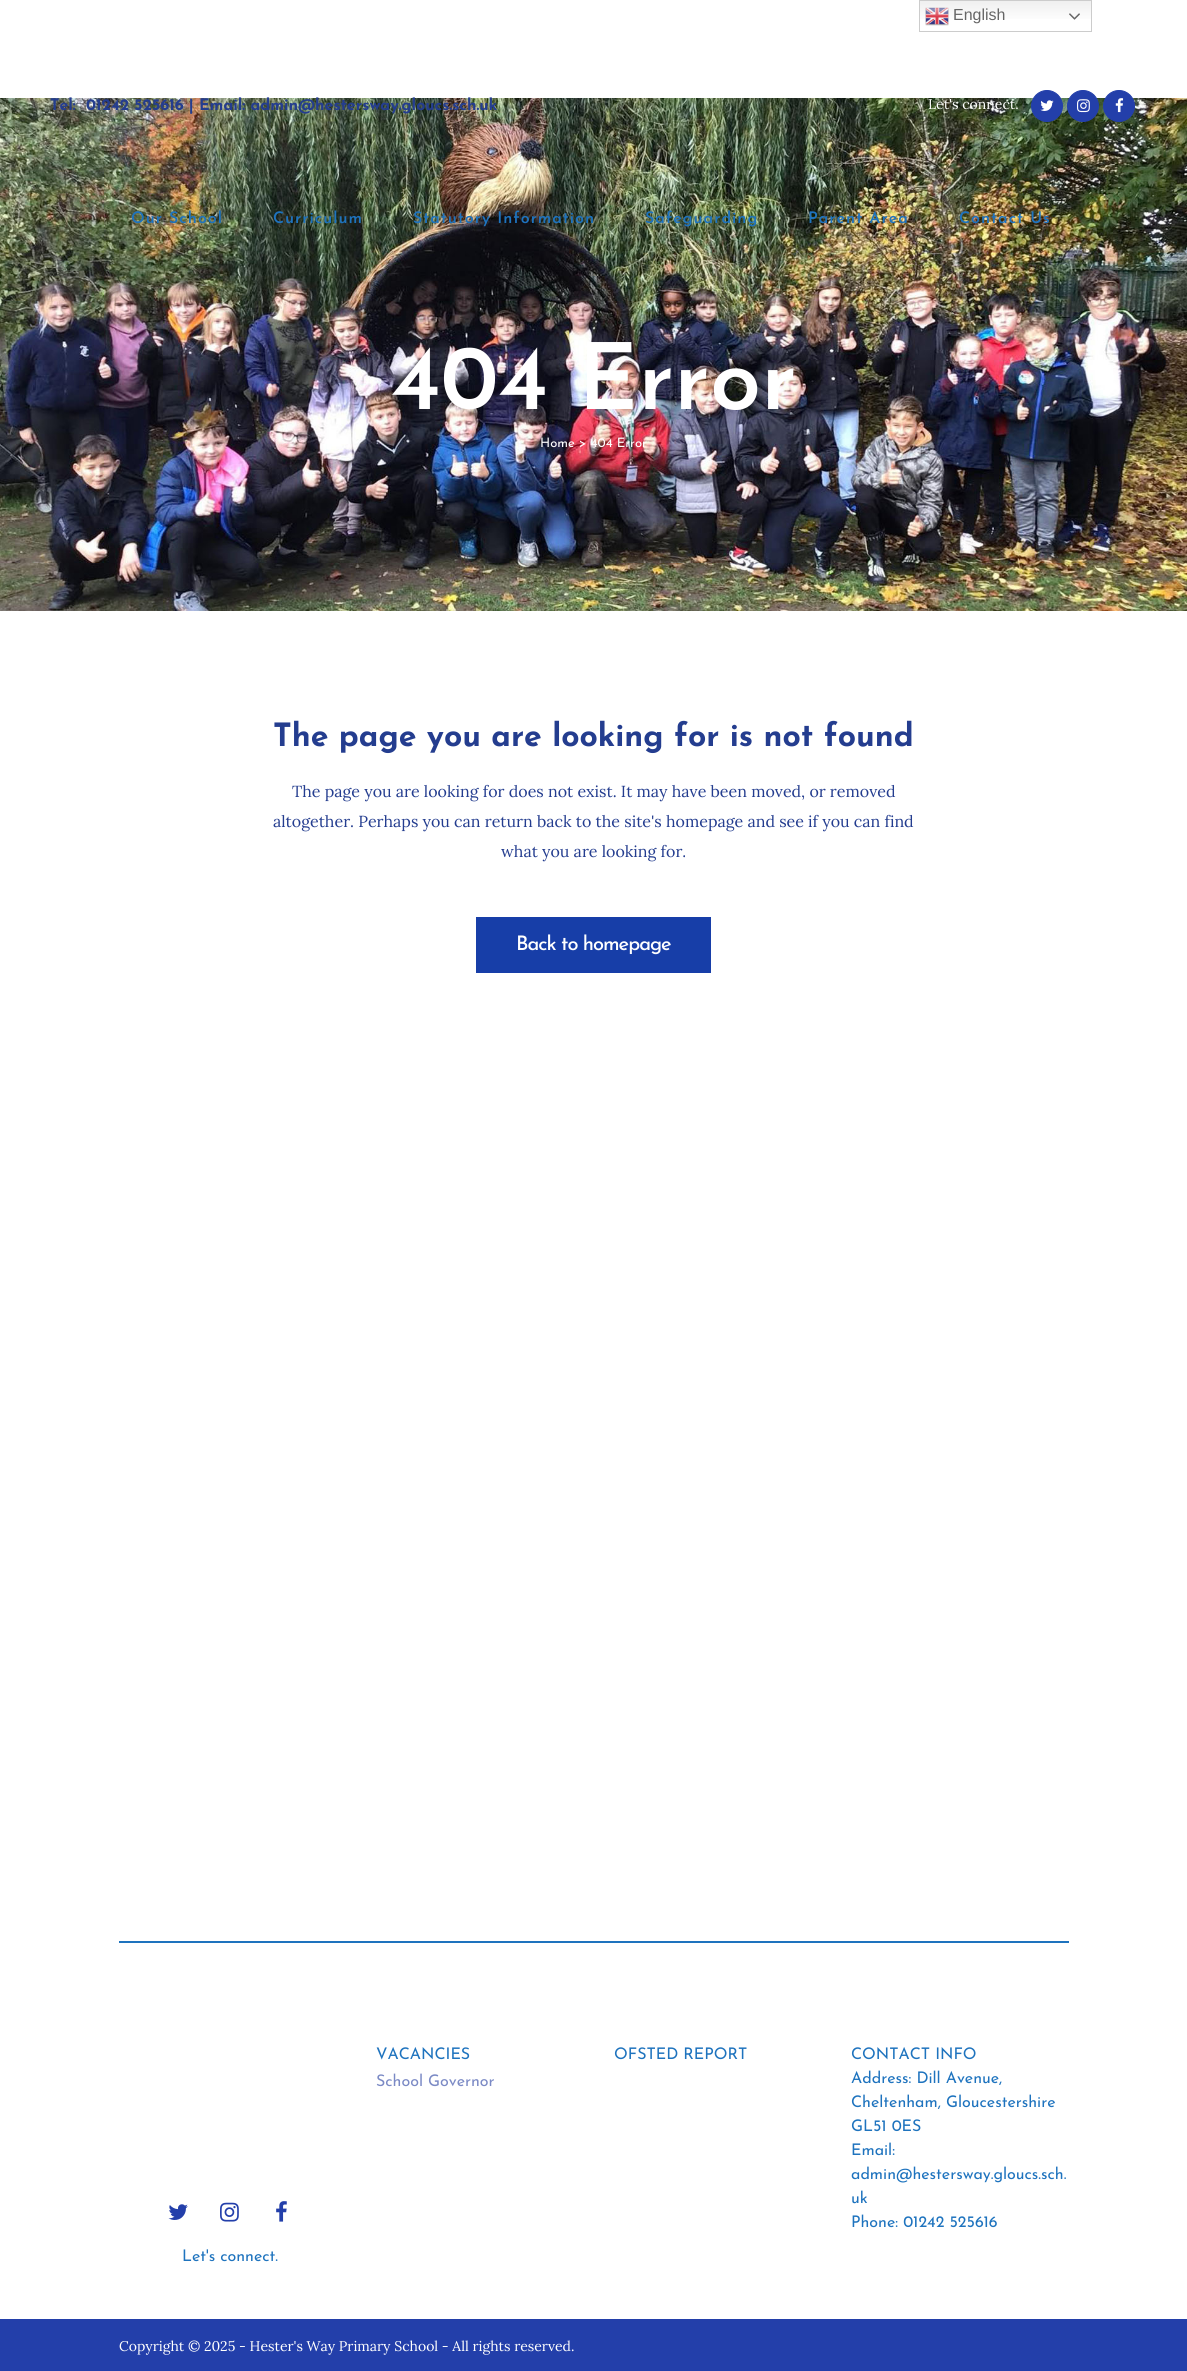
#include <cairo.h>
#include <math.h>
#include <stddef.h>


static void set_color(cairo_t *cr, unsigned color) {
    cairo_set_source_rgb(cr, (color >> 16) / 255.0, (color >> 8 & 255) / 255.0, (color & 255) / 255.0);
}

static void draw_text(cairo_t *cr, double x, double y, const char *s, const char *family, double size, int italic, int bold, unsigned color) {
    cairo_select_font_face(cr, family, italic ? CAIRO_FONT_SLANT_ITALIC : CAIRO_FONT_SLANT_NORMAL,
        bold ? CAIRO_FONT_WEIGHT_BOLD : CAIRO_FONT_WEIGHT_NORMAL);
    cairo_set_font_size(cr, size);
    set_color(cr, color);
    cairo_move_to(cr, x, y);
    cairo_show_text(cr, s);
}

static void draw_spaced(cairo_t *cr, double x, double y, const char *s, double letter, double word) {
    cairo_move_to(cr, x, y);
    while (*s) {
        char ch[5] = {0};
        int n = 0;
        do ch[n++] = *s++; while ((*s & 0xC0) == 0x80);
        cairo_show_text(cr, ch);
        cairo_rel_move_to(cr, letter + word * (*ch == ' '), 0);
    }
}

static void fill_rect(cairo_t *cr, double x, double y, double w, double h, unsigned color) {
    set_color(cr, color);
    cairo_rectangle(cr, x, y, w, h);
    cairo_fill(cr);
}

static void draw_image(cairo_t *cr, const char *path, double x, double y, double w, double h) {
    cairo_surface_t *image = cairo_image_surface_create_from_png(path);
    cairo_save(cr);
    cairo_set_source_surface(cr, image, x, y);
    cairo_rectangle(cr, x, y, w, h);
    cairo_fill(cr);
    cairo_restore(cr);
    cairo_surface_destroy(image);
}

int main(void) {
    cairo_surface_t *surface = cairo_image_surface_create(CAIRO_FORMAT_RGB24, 1187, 2371);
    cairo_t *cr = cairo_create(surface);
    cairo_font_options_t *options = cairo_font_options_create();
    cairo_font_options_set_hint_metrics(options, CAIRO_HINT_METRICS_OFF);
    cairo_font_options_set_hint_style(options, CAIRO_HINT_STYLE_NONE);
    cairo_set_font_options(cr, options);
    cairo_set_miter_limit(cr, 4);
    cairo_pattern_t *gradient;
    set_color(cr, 0xFFFFFF);
    cairo_paint(cr);
    gradient = cairo_pattern_create_linear(1006, 0, 1006, 32);
    cairo_pattern_add_color_stop_rgba(gradient, 0, 0.937, 0.937, 0.937, 1);
    cairo_pattern_add_color_stop_rgba(gradient, 0.7, 1, 1, 1, 1);
    cairo_set_source(cr, gradient);
    cairo_pattern_destroy(gradient);
    cairo_rectangle(cr, 920, 1, 171, 18);
    cairo_fill(cr);
    cairo_rectangle(cr, 919.5, 0.5, 172, 31);
    set_color(cr, 0xCCCCCC);
    cairo_set_line_width(cr, 1);
    cairo_stroke(cr);
    draw_image(cr, "assets/img1.png", 925, 7, 24, 19);
    draw_text(cr, 953, 20, "English", "Liberation Sans", 16, 0, 0, 0x666666);
    draw_image(cr, "assets/img2.png", 1069, 13, 11, 7);
    draw_image(cr, "assets/img6.png", 0, 98, 1187, 513);
    draw_text(cr, 50, 110, "Tel:  01242 525616 | Email: admin@hestersway.gloucs.sch.uk", "Josefin Sans", 16, 0, 1, 0x243D8F);
    draw_text(cr, 928, 109, "Let's connect.", "Lora", 14, 0, 0, 0xFFFFFF);
    set_color(cr, 0x233FAA);
    cairo_new_path(cr);
    cairo_arc(cr, 1047, 106, 15.5, 0, 2 * M_PI);
    cairo_fill_preserve(cr);
    cairo_stroke(cr);
    draw_image(cr, "assets/img3.png", 1040, 100, 14, 11);
    cairo_arc(cr, 1083, 106, 15.5, 0, 2 * M_PI);
    cairo_fill_preserve(cr);
    cairo_stroke(cr);
    draw_image(cr, "assets/img4.png", 1077, 99, 13, 14);
    cairo_arc(cr, 1119, 106, 15.5, 0, 2 * M_PI);
    cairo_fill_preserve(cr);
    cairo_stroke(cr);
    draw_image(cr, "assets/img5.png", 1115, 98, 9, 15);
    cairo_select_font_face(cr, "Josefin Sans SemiBold", CAIRO_FONT_SLANT_NORMAL, CAIRO_FONT_WEIGHT_NORMAL);
    cairo_set_font_size(cr, 16);
    set_color(cr, 0x1E73BE);
    draw_spaced(cr, 131, 223, "Our School", 1, 0);
    draw_spaced(cr, 273, 223, "Curriculum", 1, 0);
    draw_spaced(cr, 413, 223, "Statutory Information", 1, 0);
    draw_spaced(cr, 645, 223, "Safeguarding", 1, 0);
    draw_spaced(cr, 808, 223, "Parent Area", 1, 0);
    draw_spaced(cr, 959, 223, "Contact Us", 1, 0);
    draw_text(cr, 391, 409, "404 Error", "Josefin Sans SemiBold", 92, 0, 0, 0xFFFFFF);
    draw_text(cr, 540, 447, "Home > 404 Error", "Josefin Sans", 13, 0, 0, 0xFFFFFF);
    draw_text(cr, 273, 746, "The page you are looking for is not found", "Josefin Sans", 32, 0, 1, 0x243D8F);
    draw_text(cr, 292, 797, "The page you are looking for does not exist. It may have been moved, or removed", "Lora", 16, 0, 0, 0x243D8F);
    draw_text(cr, 273, 827, "altogether. Perhaps you can return back to the site's homepage and see if you can find", "Lora", 16, 0, 0, 0x243D8F);
    draw_text(cr, 501, 857, "what you are looking for.", "Lora", 16, 0, 0, 0x243D8F);
    fill_rect(cr, 476, 917, 235, 56, 0x173EA8);
    cairo_select_font_face(cr, "Josefin Sans Medium", CAIRO_FONT_SLANT_NORMAL, CAIRO_FONT_WEIGHT_NORMAL);
    cairo_set_font_size(cr, 20);
    set_color(cr, 0xFFFFFF);
    draw_spaced(cr, 516, 950, "Back to homepage", -1, 0);
    fill_rect(cr, 119, 1941, 950, 2, 0x1E73BE);
    draw_text(cr, 376, 2059, "VACANCIES", "Josefin Sans", 16, 0, 0, 0x1E73BE);
    draw_text(cr, 376, 2086, "School Governor", "Josefin Sans", 16, 0, 0, 0x7B8AC5);
    draw_text(cr, 614, 2059, "OFSTED REPORT", "Josefin Sans", 16, 0, 0, 0x1E73BE);
    draw_text(cr, 851, 2059, "CONTACT INFO", "Josefin Sans", 16, 0, 0, 0x1E73BE);
    draw_text(cr, 851, 2083, "Address: Dill Avenue,", "Josefin Sans", 16, 0, 0, 0x1E73BE);
    draw_text(cr, 851, 2107, "Cheltenham, Gloucestershire", "Josefin Sans", 16, 0, 0, 0x1E73BE);
    draw_text(cr, 851, 2131, "GL51 0ES", "Josefin Sans", 16, 0, 0, 0x1E73BE);
    draw_text(cr, 851, 2155, "Email:", "Josefin Sans", 16, 0, 0, 0x1E73BE);
    draw_text(cr, 851, 2179, "admin@hestersway.gloucs.sch.", "Josefin Sans", 16, 0, 0, 0x1E73BE);
    draw_text(cr, 851, 2203, "uk", "Josefin Sans", 16, 0, 0, 0x1E73BE);
    draw_text(cr, 851, 2227, "Phone: 01242 525616", "Josefin Sans", 16, 0, 0, 0x1E73BE);
    draw_image(cr, "assets/img7.png", 168, 2204, 20, 16);
    draw_image(cr, "assets/img8.png", 220, 2202, 19, 20);
    draw_image(cr, "assets/img9.png", 276, 2201, 11, 21);
    draw_text(cr, 182, 2261, "Let's connect.", "Josefin Sans", 16, 0, 0, 0x1E73BE);
    fill_rect(cr, 0, 2319, 1187, 52, 0x233FAA);
    draw_text(cr, 119, 2351, "Copyright © 2025 - Hester's Way Primary School - All rights reserved.", "Lora", 14, 0, 0, 0xFFFFFF);
    cairo_surface_write_to_png(surface, "output.png");
    cairo_font_options_destroy(options);
    cairo_destroy(cr);
    cairo_surface_destroy(surface);
    return 0;
}
